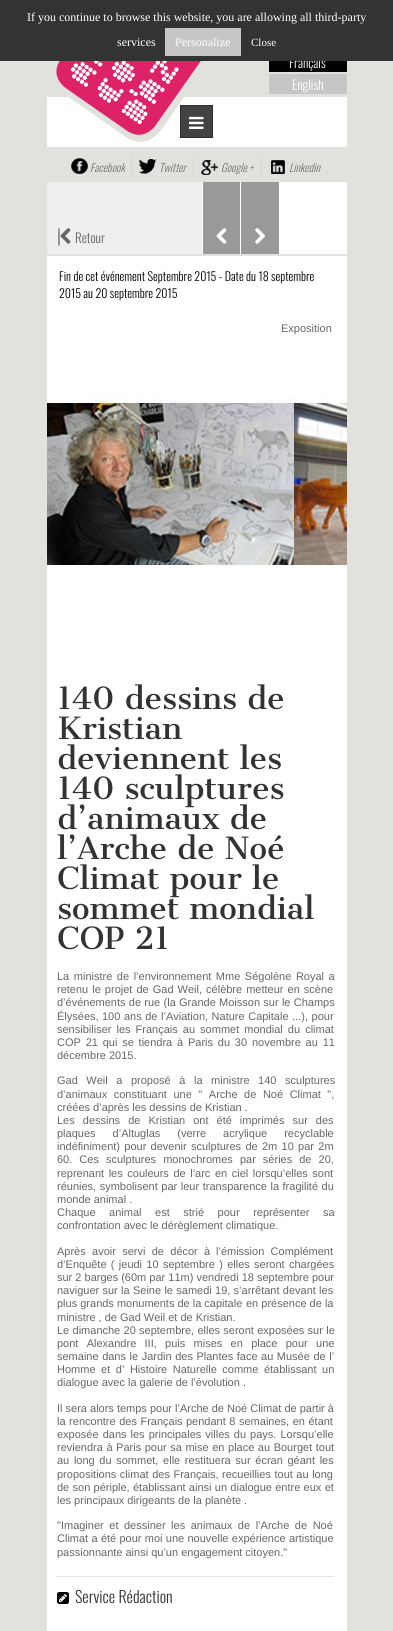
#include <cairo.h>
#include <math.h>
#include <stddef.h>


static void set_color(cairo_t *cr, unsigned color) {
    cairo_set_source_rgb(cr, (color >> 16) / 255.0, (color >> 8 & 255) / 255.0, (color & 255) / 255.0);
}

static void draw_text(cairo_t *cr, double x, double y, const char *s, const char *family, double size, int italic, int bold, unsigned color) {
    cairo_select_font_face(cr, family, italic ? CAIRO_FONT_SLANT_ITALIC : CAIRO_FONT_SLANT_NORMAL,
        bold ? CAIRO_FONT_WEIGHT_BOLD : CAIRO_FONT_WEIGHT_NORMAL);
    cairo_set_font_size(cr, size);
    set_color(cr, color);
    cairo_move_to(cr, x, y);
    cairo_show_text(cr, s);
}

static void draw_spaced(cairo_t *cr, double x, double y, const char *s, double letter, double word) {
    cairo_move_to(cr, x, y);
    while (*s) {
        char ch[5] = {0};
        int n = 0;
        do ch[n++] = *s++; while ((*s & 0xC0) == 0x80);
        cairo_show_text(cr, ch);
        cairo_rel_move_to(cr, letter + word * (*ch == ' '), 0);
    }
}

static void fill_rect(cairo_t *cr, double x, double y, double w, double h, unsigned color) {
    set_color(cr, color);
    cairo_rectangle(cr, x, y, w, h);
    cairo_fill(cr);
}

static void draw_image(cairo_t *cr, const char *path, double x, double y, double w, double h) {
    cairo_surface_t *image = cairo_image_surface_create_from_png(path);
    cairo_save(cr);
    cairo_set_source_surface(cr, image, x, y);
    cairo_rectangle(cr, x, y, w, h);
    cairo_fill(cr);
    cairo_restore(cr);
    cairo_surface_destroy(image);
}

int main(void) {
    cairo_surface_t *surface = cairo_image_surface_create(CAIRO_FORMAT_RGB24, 393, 1631);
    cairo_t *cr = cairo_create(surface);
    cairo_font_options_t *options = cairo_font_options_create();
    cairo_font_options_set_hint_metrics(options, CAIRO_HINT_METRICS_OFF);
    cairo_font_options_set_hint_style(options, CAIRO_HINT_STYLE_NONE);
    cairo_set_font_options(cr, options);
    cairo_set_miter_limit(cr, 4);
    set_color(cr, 0xE1E1DE);
    cairo_paint(cr);
    fill_rect(cr, 269, 61, 78, 11, 0x000000);
    draw_text(cr, 289, 68, "Français", "Oswald Light", 13, 0, 0, 0xFFFFFF);
    fill_rect(cr, 0, 0, 393, 61, 0x333333);
    draw_text(cr, 27, 21, "If you continue to browse this website, you are allowing all third-party", "Liberation Serif", 12, 0, 0, 0xFFFFFF);
    draw_text(cr, 117, 46, "services", "Liberation Serif", 12, 0, 0, 0xFFFFFF);
    fill_rect(cr, 165, 28, 76, 28, 0xC6C6C6);
    draw_text(cr, 175, 46, "Personalize", "Liberation Serif", 12, 0, 0, 0xFFFFFF);
    draw_text(cr, 251, 46, "Close", "Liberation Serif", 11, 0, 0, 0xFFFFFF);
    fill_rect(cr, 47, 97, 300, 50, 0xFFFFFF);
    draw_image(cr, "assets/img1.png", 56, 61, 154, 81);
    fill_rect(cr, 269, 74, 78, 20, 0xC6C6C6);
    draw_text(cr, 292, 90, "English", "Oswald Light", 13, 0, 0, 0xFFFFFF);
    set_color(cr, 0x424242);
    cairo_rectangle(cr, 180.5, 105.5, 32, 32);
    cairo_fill_preserve(cr);
    set_color(cr, 0x2C2C2C);
    cairo_set_line_width(cr, 1);
    cairo_stroke(cr);
    draw_image(cr, "assets/img2.png", 189, 116, 15, 13);
    draw_image(cr, "assets/img3.png", 71, 158, 17, 16);
    fill_rect(cr, 131, 157, 1, 18, 0xD3D3D3);
    draw_text(cr, 90, 172, "Facebook", "Oswald Light", 11, 1, 0, 0x747474);
    draw_image(cr, "assets/img4.png", 139, 159, 18, 15);
    fill_rect(cr, 193, 157, 1, 18, 0xD3D3D3);
    draw_text(cr, 159, 172, "Twitter", "Oswald Light", 11, 1, 0, 0x747474);
    draw_image(cr, "assets/img5.png", 201, 160, 17, 15);
    fill_rect(cr, 261, 157, 1, 18, 0xD3D3D3);
    draw_text(cr, 221, 172, "Google +", "Oswald Light", 11, 1, 0, 0x747474);
    draw_image(cr, "assets/img6.png", 271, 160, 14, 14);
    draw_text(cr, 289, 172, "Linkedin", "Oswald Light", 11, 1, 0, 0x747474);
    fill_rect(cr, 202, 182, 145, 72, 0xFFFFFF);
    fill_rect(cr, 47, 182, 155, 72, 0xEFEFEF);
    draw_text(cr, 57, 243, "|", "Oswald Light", 18, 0, 0, 0x666666);
    draw_image(cr, "assets/img7.png", 60, 228, 11, 16);
    draw_text(cr, 75, 243, "Retour", "Oswald Light", 13, 0, 0, 0x666666);
    fill_rect(cr, 203, 182, 37, 72, 0x999999);
    draw_image(cr, "assets/img8.png", 216, 228, 11, 16);
    fill_rect(cr, 241, 182, 38, 72, 0x999999);
    draw_image(cr, "assets/img9.png", 255, 228, 10, 16);
    fill_rect(cr, 47, 256, 300, 1375, 0xFFFFFF);
    draw_image(cr, "assets/img10.png", 47, 389, 300, 177);
    draw_text(cr, 59, 281, "Fin de cet événement Septembre 2015 - Date du 18 septembre", "Oswald Light", 12, 0, 0, 0x000000);
    draw_text(cr, 59, 298, "2015 au 20 septembre 2015", "Oswald Light", 12, 0, 0, 0x000000);
    draw_text(cr, 281, 332, "Exposition", "Liberation Sans", 11, 0, 0, 0x666666);
    draw_text(cr, 57, 709, "140 dessins de", "Cantata One", 30, 0, 0, 0x333333);
    draw_text(cr, 57, 739, "Kristian", "Cantata One", 30, 0, 0, 0x333333);
    draw_text(cr, 57, 769, "deviennent les", "Cantata One", 30, 0, 0, 0x333333);
    draw_text(cr, 57, 799, "140 sculptures", "Cantata One", 30, 0, 0, 0x333333);
    draw_text(cr, 57, 829, "d’animaux de", "Cantata One", 30, 0, 0, 0x333333);
    draw_text(cr, 57, 859, "l’Arche de Noé", "Cantata One", 30, 0, 0, 0x333333);
    draw_text(cr, 57, 889, "Climat pour le", "Cantata One", 30, 0, 0, 0x333333);
    draw_text(cr, 57, 919, "sommet mondial", "Cantata One", 30, 0, 0, 0x333333);
    draw_text(cr, 57, 949, "COP 21", "Cantata One", 30, 0, 0, 0x333333);
    cairo_select_font_face(cr, "Liberation Sans", CAIRO_FONT_SLANT_NORMAL, CAIRO_FONT_WEIGHT_NORMAL);
    cairo_set_font_size(cr, 11);
    set_color(cr, 0x666666);
    draw_spaced(cr, 57, 980, "La ministre de l’environnement Mme Ségolène Royal a", 0, 1.5);
    draw_spaced(cr, 57, 993, "retenu le projet de Gad Weil, célèbre metteur en scène", 0, 1);
    draw_spaced(cr, 57, 1006, "d’événements de rue (la Grande Moisson sur le Champs", 0, 0.25);
    draw_text(cr, 57, 1020, "Élysées,", "Liberation Sans", 11, 0, 0, 0x666666);
    draw_spaced(cr, 102, 1020, "100 ans de l’Aviation, Nature Capitale ...), pour", 0, 0.5);
    draw_spaced(cr, 57, 1033, "sensibiliser les Français au sommet mondial du climat", 0, 2);
    draw_spaced(cr, 57, 1046, "COP 21 qui se tiendra à Paris du 30 novembre au 11", 0, 1.75);
    draw_text(cr, 57, 1059, "décembre 2015.", "Liberation Sans", 11, 0, 0, 0x666666);
    draw_spaced(cr, 57, 1084, "Gad Weil a proposé à la ministre 140 sculptures", 0, 5.5);
    draw_spaced(cr, 57, 1098, "d’animaux constituant une \" Arche de Noé Climat \",", 0, 3.5);
    draw_text(cr, 57, 1111, "créées d’après les dessins de Kristian .", "Liberation Sans", 11, 0, 0, 0x666666);
    draw_spaced(cr, 57, 1124, "Les dessins de Kristian ont été imprimés sur des", 0, 5);
    draw_spaced(cr, 57, 1137, "plaques d’Altuglas (verre acrylique recyclable", 0, 14);
    draw_spaced(cr, 57, 1150, "indéfiniment) pour devenir sculptures de 2m 10 par 2m", 0, 1.25);
    draw_spaced(cr, 57, 1163, "60. Ces sculptures monochromes par séries de 20,", 0, 4);
    draw_spaced(cr, 57, 1177, "reprenant les couleurs de l’arc en ciel lorsqu’elles sont", 0, 1.5);
    draw_spaced(cr, 57, 1190, "réunies, symbolisent par leur transparence la fragilité du", 0, 0.5);
    draw_text(cr, 57, 1203, "monde animal .", "Liberation Sans", 11, 0, 0, 0x666666);
    draw_spaced(cr, 57, 1216, "Chaque animal est strié pour représenter sa", 0, 10.5);
    draw_text(cr, 57, 1229, "confrontation avec le dérèglement climatique.", "Liberation Sans", 11, 0, 0, 0x666666);
    draw_spaced(cr, 57, 1255, "Après avoir servi de décor à", 0, 3.25);
    draw_spaced(cr, 216, 1255, "l’émission Complément", 0, 3.25);
    draw_spaced(cr, 57, 1268, "d’Enquête ( jeudi 10 septembre ) elles seront chargées", 0, 1.25);
    draw_text(cr, 57, 1281, "sur 2 barges (60m par 11m) vendredi 18 septembre pour", "Liberation Sans", 11, 0, 0, 0x666666);
    draw_spaced(cr, 57, 1294, "naviguer sur la Seine le samedi 19, s’arrêtant devant les", 0, 0.25);
    draw_text(cr, 57, 1307, "plus grands monuments de la capitale", "Liberation Sans", 11, 0, 0, 0x666666);
    draw_text(cr, 246, 1307, "en présence de la", "Liberation Sans", 11, 0, 0, 0x666666);
    draw_text(cr, 57, 1321, "ministre , de Gad Weil et de Kristian.", "Liberation Sans", 11, 0, 0, 0x666666);
    draw_spaced(cr, 57, 1334, "Le dimanche 20 septembre, elles seront exposées sur le", 0, 0.25);
    draw_spaced(cr, 57, 1347, "pont Alexandre III, puis mises en place pour une", 0, 5.25);
    draw_spaced(cr, 57, 1360, "semaine dans le Jardin des Plantes face au Musée de l’", 0, 0.5);
    draw_spaced(cr, 57, 1373, "Homme et d’ Histoire Naturelle comme établissant un", 0, 2.5);
    draw_text(cr, 57, 1386, "dialogue avec la galerie de l’évolution .", "Liberation Sans", 11, 0, 0, 0x666666);
    draw_text(cr, 57, 1412, "Il sera alors temps pour l’Arche de Noé Climat de partir à", "Liberation Sans", 11, 0, 0, 0x666666);
    draw_spaced(cr, 57, 1425, "la rencontre des Français", 0, 0.5);
    draw_spaced(cr, 186, 1425, "pendant 8 semaines, en étant", 0, 0.5);
    draw_spaced(cr, 57, 1438, "exposée dans les principales villes du pays. Lorsqu’elle", 0, 1);
    draw_spaced(cr, 57, 1451, "reviendra à Paris pour sa mise en place au Bourget tout", 0, 0.5);
    draw_spaced(cr, 57, 1464, "au long du sommet, elle restituera sur écran géant les", 0, 1.6);
    draw_spaced(cr, 57, 1478, "propositions climat des Français,", 0, 0.5);
    draw_spaced(cr, 222, 1478, "recueillies tout au long", 0, 0.5);
    draw_spaced(cr, 57, 1491, "de son périple, établissant ainsi un dialogue entre eux et", 0, 0.25);
    draw_text(cr, 57, 1504, "les principaux dirigeants de la planète .", "Liberation Sans", 11, 0, 0, 0x666666);
    draw_spaced(cr, 57, 1529, "\"Imaginer et dessiner les animaux de l’Arche de Noé", 0, 2.5);
    draw_spaced(cr, 57, 1542, "Climat a été pour moi une nouvelle expérience artistique", 0, 0.25);
    draw_text(cr, 57, 1556, "passionnante ainsi qu’un engagement citoyen.\"", "Liberation Sans", 11, 0, 0, 0x666666);
    fill_rect(cr, 57, 1576, 277, 1, 0xE5E5E5);
    draw_image(cr, "assets/img11.png", 57, 1592, 12, 12);
    draw_text(cr, 75, 1603, "Service Rédaction", "Oswald Light", 16, 0, 0, 0x333333);
    cairo_surface_write_to_png(surface, "output.png");
    cairo_font_options_destroy(options);
    cairo_destroy(cr);
    cairo_surface_destroy(surface);
    return 0;
}
